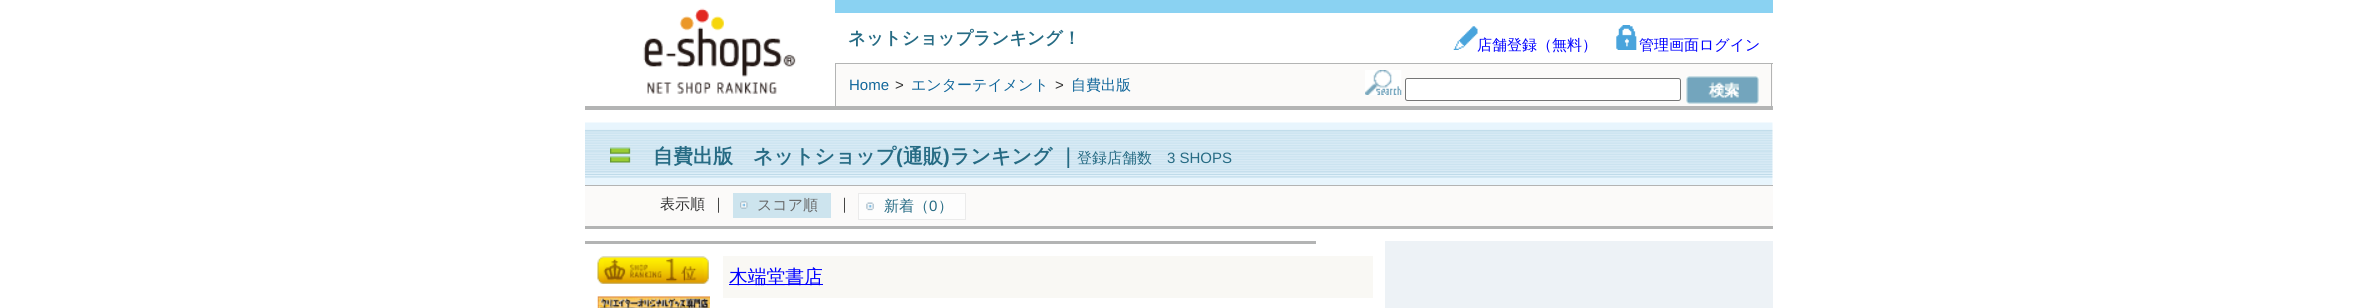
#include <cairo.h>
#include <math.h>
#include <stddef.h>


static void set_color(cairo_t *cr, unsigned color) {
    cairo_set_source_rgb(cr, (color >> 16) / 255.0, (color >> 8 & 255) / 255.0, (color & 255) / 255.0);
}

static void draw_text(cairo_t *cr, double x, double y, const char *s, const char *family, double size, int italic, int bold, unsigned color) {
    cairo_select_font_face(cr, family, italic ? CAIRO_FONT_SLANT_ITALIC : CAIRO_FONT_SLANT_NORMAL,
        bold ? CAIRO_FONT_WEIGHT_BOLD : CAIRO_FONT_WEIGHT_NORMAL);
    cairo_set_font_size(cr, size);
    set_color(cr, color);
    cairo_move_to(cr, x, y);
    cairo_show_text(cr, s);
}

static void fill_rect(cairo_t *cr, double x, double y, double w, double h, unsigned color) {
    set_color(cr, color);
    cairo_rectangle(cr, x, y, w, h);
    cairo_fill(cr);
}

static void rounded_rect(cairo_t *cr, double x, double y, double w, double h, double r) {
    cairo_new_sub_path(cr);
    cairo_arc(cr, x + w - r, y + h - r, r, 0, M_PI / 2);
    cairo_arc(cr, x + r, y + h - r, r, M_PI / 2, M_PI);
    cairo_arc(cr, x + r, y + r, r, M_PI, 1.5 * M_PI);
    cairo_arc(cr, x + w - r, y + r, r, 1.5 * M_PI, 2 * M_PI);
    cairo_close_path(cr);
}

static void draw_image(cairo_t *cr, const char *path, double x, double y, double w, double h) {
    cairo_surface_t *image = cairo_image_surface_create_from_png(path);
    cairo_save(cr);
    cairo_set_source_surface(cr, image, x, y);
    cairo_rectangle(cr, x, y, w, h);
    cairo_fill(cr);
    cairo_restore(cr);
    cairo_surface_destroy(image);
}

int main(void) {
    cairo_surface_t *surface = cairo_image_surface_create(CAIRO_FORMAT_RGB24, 2357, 308);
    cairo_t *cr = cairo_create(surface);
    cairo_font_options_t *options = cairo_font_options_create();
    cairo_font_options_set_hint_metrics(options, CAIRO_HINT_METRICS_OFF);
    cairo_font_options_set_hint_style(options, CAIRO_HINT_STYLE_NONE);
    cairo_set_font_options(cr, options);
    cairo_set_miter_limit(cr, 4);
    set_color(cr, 0xFFFFFF);
    cairo_paint(cr);
    fill_rect(cr, 585, 106, 1188, 4, 0xB3B4B4);
    draw_image(cr, "assets/img1.png", 643, 8, 153, 86);
    fill_rect(cr, 835, 0, 938, 13, 0x8AD2F2);
    draw_text(cr, 848, 44, "ネットショップランキング！", "WenQuanYi Zen Hei", 17.5, 0, 1, 0x266B84);
    draw_image(cr, "assets/img2.png", 1453, 26, 25, 24);
    draw_text(cr, 1477, 50, "店舗登録（無料）", "WenQuanYi Zen Hei Medium", 15, 0, 0, 0x0000FF);
    draw_image(cr, "assets/img3.png", 1616, 25, 21, 25);
    draw_text(cr, 1639, 50, "管理画面ログイン", "WenQuanYi Zen Hei Medium", 15, 0, 0, 0x0000FF);
    fill_rect(cr, 836, 64, 937, 42, 0xFBFAF9);
    fill_rect(cr, 835, 63, 938, 1, 0xB3B4B4);
    fill_rect(cr, 1771, 63, 1, 43, 0xB3B4B4);
    fill_rect(cr, 835, 63, 1, 43, 0xB3B4B4);
    draw_text(cr, 849, 90, "Home", "Liberation Sans", 15, 0, 0, 0x12679B);
    draw_text(cr, 895, 90, ">", "Liberation Sans", 15, 0, 0, 0x333333);
    draw_text(cr, 911, 90, "エンターテイメント", "WenQuanYi Zen Hei Medium", 15, 0, 0, 0x12679B);
    draw_text(cr, 1055, 90, ">", "Liberation Sans", 15, 0, 0, 0x333333);
    draw_text(cr, 1071, 90, "自費出版", "WenQuanYi Zen Hei Medium", 15, 0, 0, 0x12679B);
    draw_image(cr, "assets/img4.png", 1365, 70, 37, 25);
    set_color(cr, 0xFFFFFF);
    rounded_rect(cr, 1405.5, 78.5, 275, 22, 2);
    cairo_fill_preserve(cr);
    set_color(cr, 0x767676);
    cairo_set_line_width(cr, 1);
    cairo_stroke(cr);
    draw_image(cr, "assets/img5.png", 1686, 76, 73, 28);
    draw_image(cr, "assets/img6.png", 585, 122, 1188, 63);
    draw_image(cr, "assets/img7.png", 610, 147, 21, 16);
    draw_text(cr, 653, 163, "自費出版　ネットショップ", "WenQuanYi Zen Hei", 20, 0, 1, 0x266B84);
    draw_text(cr, 896, 163, "(", "Liberation Sans", 20, 0, 1, 0x266B84);
    draw_text(cr, 903, 163, "通販", "WenQuanYi Zen Hei", 20, 0, 1, 0x266B84);
    draw_text(cr, 943, 163, ")", "Liberation Sans", 20, 0, 1, 0x266B84);
    draw_text(cr, 950, 163, "ランキング", "WenQuanYi Zen Hei", 20, 0, 1, 0x266B84);
    draw_text(cr, 1058, 163, "｜", "WenQuanYi Zen Hei", 20, 0, 1, 0x266B84);
    draw_text(cr, 1077, 163, "登録店舗数", "WenQuanYi Zen Hei Medium", 15, 0, 0, 0x266B84);
    draw_text(cr, 1167, 163, "3 SHOPS", "Liberation Sans", 15, 0, 0, 0x266B84);
    fill_rect(cr, 585, 186, 1188, 40, 0xFBFAF9);
    fill_rect(cr, 585, 185, 1188, 1, 0xB3B4B4);
    fill_rect(cr, 585, 226, 1188, 3, 0xB3B4B4);
    draw_text(cr, 660, 209, "表示順", "WenQuanYi Zen Hei Medium", 15, 0, 0, 0x333333);
    draw_text(cr, 711, 209, "｜", "WenQuanYi Zen Hei Medium", 15, 0, 0, 0x333333);
    fill_rect(cr, 733, 193, 98, 25, 0xCDE4EE);
    draw_image(cr, "assets/img8.png", 740, 201, 8, 8);
    draw_text(cr, 757, 210, "スコア順", "WenQuanYi Zen Hei Medium", 15, 0, 0, 0x666666);
    draw_text(cr, 837, 209, "｜", "WenQuanYi Zen Hei Medium", 15, 0, 0, 0x333333);
    fill_rect(cr, 859, 194, 106, 25, 0xFDFDFD);
    draw_image(cr, "assets/img9.png", 866, 202, 8, 9);
    cairo_rectangle(cr, 858.5, 193.5, 107, 26);
    set_color(cr, 0xEBEBEB);
    cairo_stroke(cr);
    draw_text(cr, 884, 211, "新着（", "WenQuanYi Zen Hei Medium", 15, 0, 0, 0x266B84);
    draw_text(cr, 929, 211, "0", "Liberation Sans", 15, 0, 0, 0x266B84);
    draw_text(cr, 938, 211, "）", "WenQuanYi Zen Hei Medium", 15, 0, 0, 0x266B84);
    fill_rect(cr, 1385, 241, 388, 67, 0xEDF2F6);
    fill_rect(cr, 585, 241, 731, 3, 0xB3B4B4);
    draw_image(cr, "assets/img10.png", 597, 256, 112, 28);
    draw_image(cr, "assets/img11.png", 597, 296, 113, 12);
    fill_rect(cr, 723, 256, 650, 42, 0xF9F8F4);
    fill_rect(cr, 729, 284, 94, 1, 0x0000FF);
    draw_text(cr, 729, 283, "木端堂書店", "WenQuanYi Zen Hei Medium", 18.75, 0, 0, 0x0000FF);
    cairo_surface_write_to_png(surface, "output.png");
    cairo_font_options_destroy(options);
    cairo_destroy(cr);
    cairo_surface_destroy(surface);
    return 0;
}
